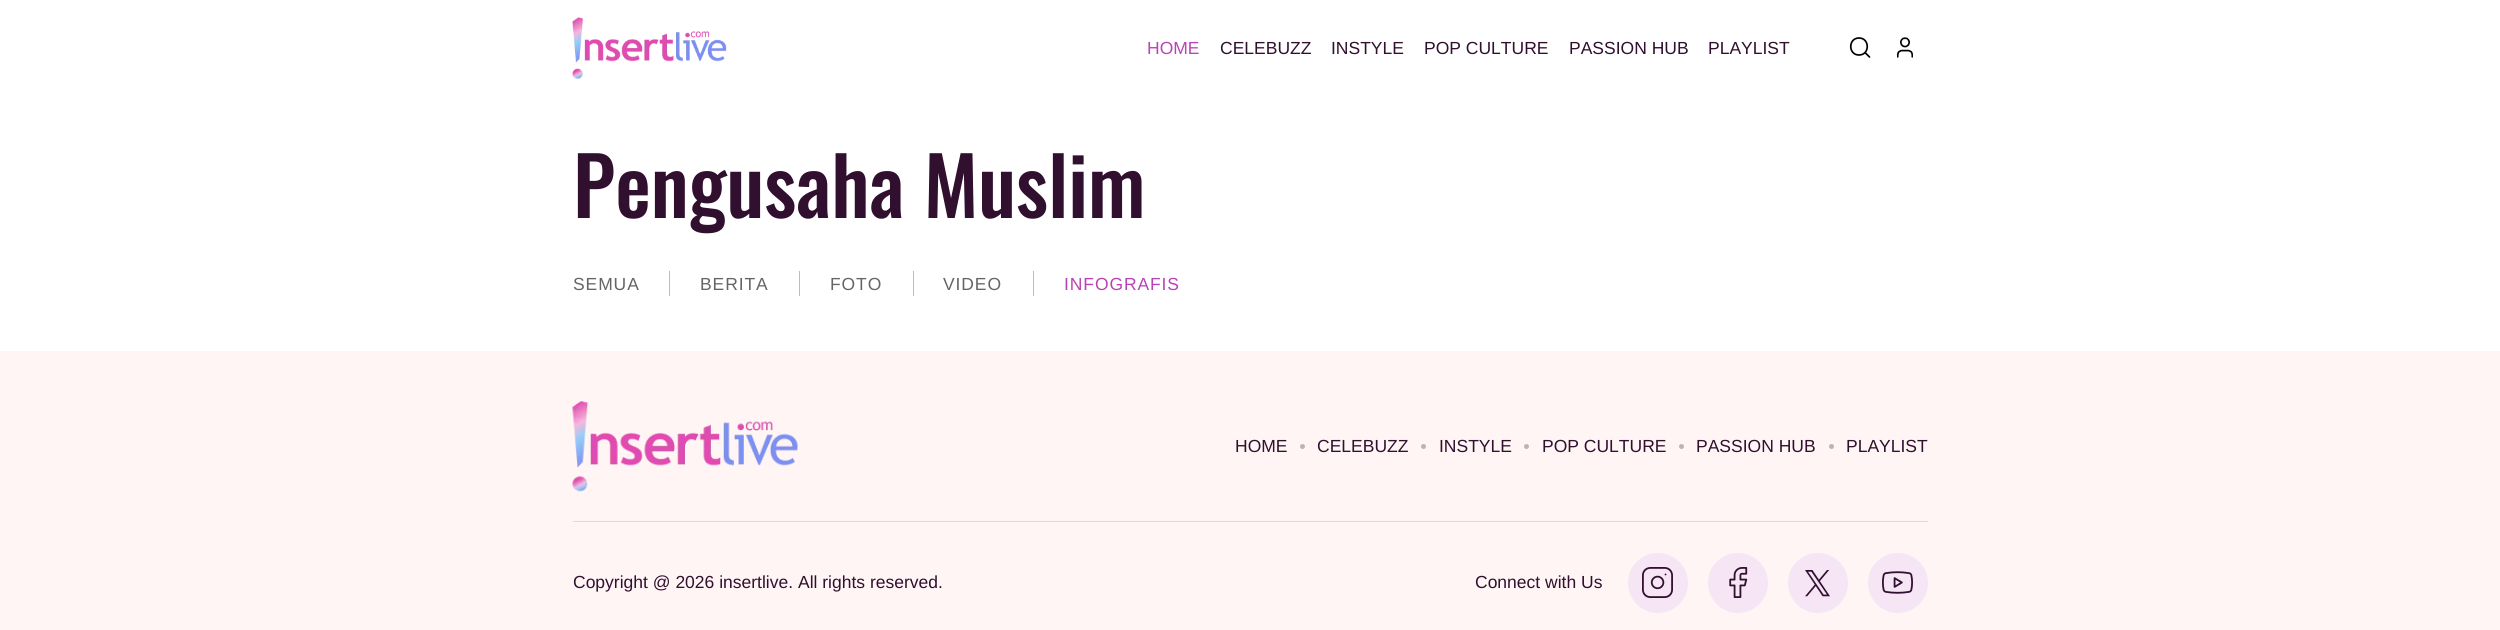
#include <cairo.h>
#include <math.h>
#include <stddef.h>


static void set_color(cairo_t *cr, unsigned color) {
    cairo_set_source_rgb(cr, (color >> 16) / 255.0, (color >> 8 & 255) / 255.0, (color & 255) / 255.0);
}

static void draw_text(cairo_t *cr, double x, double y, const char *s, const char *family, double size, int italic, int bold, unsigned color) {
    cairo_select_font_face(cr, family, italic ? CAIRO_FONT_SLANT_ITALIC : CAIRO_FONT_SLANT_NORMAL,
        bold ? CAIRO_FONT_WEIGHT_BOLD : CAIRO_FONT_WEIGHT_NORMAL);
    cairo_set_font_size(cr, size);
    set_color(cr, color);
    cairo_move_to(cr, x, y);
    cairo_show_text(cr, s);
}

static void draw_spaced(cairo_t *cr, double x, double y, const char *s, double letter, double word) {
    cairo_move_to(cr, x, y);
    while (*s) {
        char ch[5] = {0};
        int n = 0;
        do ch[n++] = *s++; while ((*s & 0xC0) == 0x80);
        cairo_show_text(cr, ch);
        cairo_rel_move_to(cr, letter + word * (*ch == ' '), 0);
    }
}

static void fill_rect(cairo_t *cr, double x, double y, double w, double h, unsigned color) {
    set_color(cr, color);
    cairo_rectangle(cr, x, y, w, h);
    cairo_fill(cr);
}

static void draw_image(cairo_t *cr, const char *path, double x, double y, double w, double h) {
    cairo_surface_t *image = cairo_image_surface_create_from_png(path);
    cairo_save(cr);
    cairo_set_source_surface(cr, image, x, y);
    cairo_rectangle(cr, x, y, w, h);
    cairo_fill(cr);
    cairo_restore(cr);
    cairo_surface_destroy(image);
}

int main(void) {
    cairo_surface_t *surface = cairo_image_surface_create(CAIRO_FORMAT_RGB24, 2500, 630);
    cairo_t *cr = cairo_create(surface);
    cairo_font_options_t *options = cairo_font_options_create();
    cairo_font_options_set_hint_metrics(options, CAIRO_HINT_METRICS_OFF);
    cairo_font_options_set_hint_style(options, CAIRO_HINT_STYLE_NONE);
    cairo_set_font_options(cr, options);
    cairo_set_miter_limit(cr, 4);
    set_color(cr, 0xFFFFFF);
    cairo_paint(cr);
    draw_image(cr, "assets/img1.png", 572, 17, 155, 62);
    draw_text(cr, 1147, 54, "HOME", "Liberation Sans", 17.5, 0, 0, 0xBA43B4);
    draw_text(cr, 1220, 54, "CELEBUZZ", "Liberation Sans", 17.5, 0, 0, 0x310F2F);
    draw_text(cr, 1331, 54, "INSTYLE", "Liberation Sans", 17.5, 0, 0, 0x310F2F);
    draw_text(cr, 1424, 54, "POP CULTURE", "Liberation Sans", 17.5, 0, 0, 0x310F2F);
    draw_text(cr, 1569, 54, "PASSION HUB", "Liberation Sans", 17.5, 0, 0, 0x310F2F);
    draw_text(cr, 1708, 54, "PLAYLIST", "Liberation Sans", 17.5, 0, 0, 0x310F2F);
    cairo_new_path(cr);
    cairo_move_to(cr, 1869.5, 57);
    cairo_line_to(cr, 1865, 52.5);
    cairo_move_to(cr, 1859, 55);
    cairo_curve_to(cr, 1870, 55, 1870, 38, 1859, 38);
    cairo_curve_to(cr, 1848, 38, 1848, 55, 1859, 55);
    cairo_close_path(cr);
    set_color(cr, 0x000000);
    cairo_set_line_width(cr, 1.7);
    cairo_set_line_cap(cr, CAIRO_LINE_CAP_ROUND);
    cairo_set_line_join(cr, CAIRO_LINE_JOIN_ROUND);
    cairo_stroke(cr);
    draw_image(cr, "assets/img2.png", 1897, 37, 16, 21);
    draw_text(cr, 573, 218, "Pengusaha Muslim", "Oswald Medium", 80, 0, 0, 0x310F2F);
    fill_rect(cr, 669, 271, 1, 25, 0xBDBDBD);
    cairo_select_font_face(cr, "Liberation Sans", CAIRO_FONT_SLANT_NORMAL, CAIRO_FONT_WEIGHT_NORMAL);
    cairo_set_font_size(cr, 17.5);
    set_color(cr, 0x656565);
    draw_spaced(cr, 573, 290, "SEMUA", 0.9, 0);
    fill_rect(cr, 799, 271, 1, 25, 0xBDBDBD);
    set_color(cr, 0x656565);
    draw_spaced(cr, 700, 290, "BERITA", 0.9, 0);
    fill_rect(cr, 913, 271, 1, 25, 0xBDBDBD);
    set_color(cr, 0x656565);
    draw_spaced(cr, 830, 290, "FOTO", 0.9, 0);
    fill_rect(cr, 1033, 271, 1, 25, 0xBDBDBD);
    set_color(cr, 0x656565);
    draw_spaced(cr, 943, 290, "VIDEO", 0.9, 0);
    set_color(cr, 0xBA43B4);
    draw_spaced(cr, 1064, 290, "INFOGRAFIS", 0.9, 0);
    fill_rect(cr, 0, 351, 2500, 279, 0xFFF5F5);
    fill_rect(cr, 573, 521, 1355, 1, 0xEED0ED);
    draw_image(cr, "assets/img3.png", 572, 401, 226, 91);
    draw_text(cr, 1235, 452, "HOME", "Liberation Sans", 17.5, 0, 0, 0x310F2F);
    set_color(cr, 0xC1B0BA);
    cairo_new_path(cr);
    cairo_arc(cr, 1302.5, 446.5, 2.5, 0, 2 * M_PI);
    cairo_fill(cr);
    draw_text(cr, 1317, 452, "CELEBUZZ", "Liberation Sans", 17.5, 0, 0, 0x310F2F);
    set_color(cr, 0xC1B0BA);
    cairo_new_path(cr);
    cairo_arc(cr, 1423.5, 446.5, 2.5, 0, 2 * M_PI);
    cairo_fill(cr);
    draw_text(cr, 1439, 452, "INSTYLE", "Liberation Sans", 17.5, 0, 0, 0x310F2F);
    set_color(cr, 0xC1B0BA);
    cairo_new_path(cr);
    cairo_arc(cr, 1526.5, 446.5, 2.5, 0, 2 * M_PI);
    cairo_fill(cr);
    draw_text(cr, 1542, 452, "POP CULTURE", "Liberation Sans", 17.5, 0, 0, 0x310F2F);
    set_color(cr, 0xC1B0BA);
    cairo_new_path(cr);
    cairo_arc(cr, 1681.5, 446.5, 2.5, 0, 2 * M_PI);
    cairo_fill(cr);
    draw_text(cr, 1696, 452, "PASSION HUB", "Liberation Sans", 17.5, 0, 0, 0x310F2F);
    set_color(cr, 0xC1B0BA);
    cairo_new_path(cr);
    cairo_arc(cr, 1831.5, 446.5, 2.5, 0, 2 * M_PI);
    cairo_fill(cr);
    draw_text(cr, 1846, 452, "PLAYLIST", "Liberation Sans", 17.5, 0, 0, 0x310F2F);
    draw_text(cr, 573, 588, "Copyright @ 2026 insertlive. All rights reserved.", "Liberation Sans", 17.5, 0, 0, 0x310F2F);
    draw_text(cr, 1475, 588, "Connect with Us", "Liberation Sans", 17.5, 0, 0, 0x310F2F);
    set_color(cr, 0xF5E5F5);
    cairo_new_path(cr);
    cairo_arc(cr, 1658, 583, 30, 0, 2 * M_PI);
    cairo_fill(cr);
    draw_image(cr, "assets/img4.png", 1642, 567, 31, 31);
    cairo_arc(cr, 1738, 583, 30, 0, 2 * M_PI);
    cairo_fill(cr);
    draw_image(cr, "assets/img5.png", 1729, 567, 19, 31);
    cairo_arc(cr, 1818, 583, 30, 0, 2 * M_PI);
    cairo_fill(cr);
    draw_image(cr, "assets/img6.png", 1805, 570, 25, 27);
    cairo_arc(cr, 1898, 583, 30, 0, 2 * M_PI);
    cairo_fill(cr);
    draw_image(cr, "assets/img7.png", 1882, 571, 31, 23);
    cairo_surface_write_to_png(surface, "output.png");
    cairo_font_options_destroy(options);
    cairo_destroy(cr);
    cairo_surface_destroy(surface);
    return 0;
}
